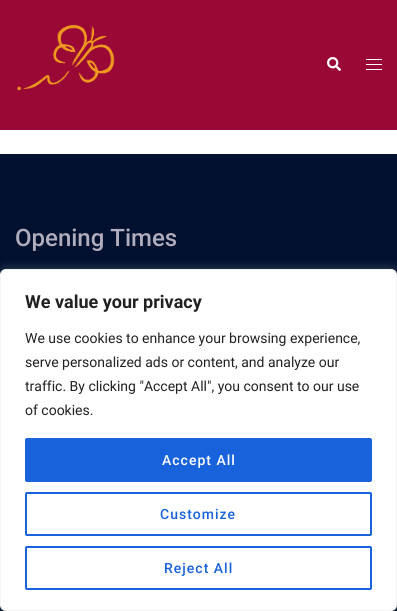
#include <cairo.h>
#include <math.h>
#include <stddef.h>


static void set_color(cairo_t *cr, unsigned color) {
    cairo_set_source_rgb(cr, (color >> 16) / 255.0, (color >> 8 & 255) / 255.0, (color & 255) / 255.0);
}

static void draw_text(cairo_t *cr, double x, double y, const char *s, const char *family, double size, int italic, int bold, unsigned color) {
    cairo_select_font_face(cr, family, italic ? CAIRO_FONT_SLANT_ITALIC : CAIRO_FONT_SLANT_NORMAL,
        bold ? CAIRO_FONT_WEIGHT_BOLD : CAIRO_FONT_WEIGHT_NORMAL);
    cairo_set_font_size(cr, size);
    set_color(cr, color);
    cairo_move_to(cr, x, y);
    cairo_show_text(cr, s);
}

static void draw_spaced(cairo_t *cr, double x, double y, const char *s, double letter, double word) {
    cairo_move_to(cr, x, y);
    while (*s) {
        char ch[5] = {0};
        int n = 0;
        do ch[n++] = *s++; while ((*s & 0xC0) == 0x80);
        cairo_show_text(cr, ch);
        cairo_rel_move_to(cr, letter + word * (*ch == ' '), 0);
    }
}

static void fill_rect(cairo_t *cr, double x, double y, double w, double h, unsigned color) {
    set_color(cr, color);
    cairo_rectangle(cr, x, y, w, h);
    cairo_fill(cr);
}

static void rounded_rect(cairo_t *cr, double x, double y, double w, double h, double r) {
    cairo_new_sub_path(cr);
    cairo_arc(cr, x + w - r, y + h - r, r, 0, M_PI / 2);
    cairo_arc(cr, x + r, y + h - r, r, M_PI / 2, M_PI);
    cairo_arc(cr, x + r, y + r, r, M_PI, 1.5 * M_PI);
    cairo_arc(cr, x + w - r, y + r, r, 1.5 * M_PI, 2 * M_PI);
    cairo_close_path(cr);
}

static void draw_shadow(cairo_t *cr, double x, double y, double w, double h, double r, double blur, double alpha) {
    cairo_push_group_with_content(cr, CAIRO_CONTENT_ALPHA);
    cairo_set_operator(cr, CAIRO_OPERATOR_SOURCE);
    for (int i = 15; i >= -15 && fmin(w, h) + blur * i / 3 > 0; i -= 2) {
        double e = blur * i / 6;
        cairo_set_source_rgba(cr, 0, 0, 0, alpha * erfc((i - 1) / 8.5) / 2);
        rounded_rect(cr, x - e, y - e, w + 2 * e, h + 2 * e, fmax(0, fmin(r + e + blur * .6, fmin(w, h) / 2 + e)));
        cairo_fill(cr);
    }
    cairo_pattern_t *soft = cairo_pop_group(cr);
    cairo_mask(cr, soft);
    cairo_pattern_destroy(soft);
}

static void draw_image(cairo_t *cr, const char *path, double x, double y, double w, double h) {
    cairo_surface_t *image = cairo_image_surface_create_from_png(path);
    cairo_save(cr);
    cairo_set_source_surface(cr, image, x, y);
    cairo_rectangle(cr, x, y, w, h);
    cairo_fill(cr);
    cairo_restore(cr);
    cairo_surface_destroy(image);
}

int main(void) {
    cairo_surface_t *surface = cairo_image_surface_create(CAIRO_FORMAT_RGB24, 397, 611);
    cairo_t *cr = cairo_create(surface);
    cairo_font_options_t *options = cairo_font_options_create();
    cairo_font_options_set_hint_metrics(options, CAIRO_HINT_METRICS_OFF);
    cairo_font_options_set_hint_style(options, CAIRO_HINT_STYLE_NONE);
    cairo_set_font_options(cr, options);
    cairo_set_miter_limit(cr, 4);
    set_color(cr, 0xFFFFFF);
    cairo_paint(cr);
    fill_rect(cr, 0, 0, 397, 130, 0x9A0935);
    draw_image(cr, "assets/img1.png", 17, 24, 98, 67);
    draw_image(cr, "assets/img2.png", 327, 57, 14, 14);
    fill_rect(cr, 366, 59, 16, 1, 0xFFFFFF);
    fill_rect(cr, 366, 64, 16, 1, 0xFFFFFF);
    fill_rect(cr, 366, 69, 16, 1, 0xFFFFFF);
    fill_rect(cr, 0, 154, 397, 457, 0x00102E);
    draw_text(cr, 15, 246, "Opening Times", "Roboto Medium", 24, 0, 0, 0xB0ADBE);
    set_color(cr, 0xACABAB);
    draw_shadow(cr, 0, 268, 397, 342, 6, 5, 0.3);
    set_color(cr, 0xFFFFFF);
    rounded_rect(cr, 0.5, 269.5, 396, 341, 5.5);
    cairo_fill_preserve(cr);
    set_color(cr, 0xF4F4F4);
    cairo_set_line_width(cr, 1);
    cairo_stroke(cr);
    draw_text(cr, 25, 308, "We value your privacy", "Roboto", 18, 0, 1, 0x212121);
    draw_text(cr, 25, 343, "We use cookies to enhance your browsing experience,", "Roboto", 14, 0, 0, 0x212121);
    draw_text(cr, 25, 367, "serve personalized ads or content, and analyze our", "Roboto", 14, 0, 0, 0x212121);
    draw_text(cr, 25, 391, "traffic. By clicking \"Accept All\", you consent to our use", "Roboto", 14, 0, 0, 0x212121);
    draw_text(cr, 25, 415, "of cookies.", "Roboto", 14, 0, 0, 0x212121);
    set_color(cr, 0x1863DC);
    rounded_rect(cr, 26, 439, 345, 42, 1);
    cairo_fill_preserve(cr);
    cairo_set_line_width(cr, 2);
    cairo_stroke(cr);
    cairo_select_font_face(cr, "Roboto Medium", CAIRO_FONT_SLANT_NORMAL, CAIRO_FONT_WEIGHT_NORMAL);
    set_color(cr, 0xFFFFFF);
    draw_spaced(cr, 162, 465, "Accept All", 1, 0);
    rounded_rect(cr, 26, 493, 345, 42, 1);
    set_color(cr, 0x1863DC);
    cairo_stroke(cr);
    draw_spaced(cr, 160, 519, "Customize", 1, 0);
    rounded_rect(cr, 26, 547, 345, 42, 1);
    cairo_stroke(cr);
    draw_spaced(cr, 164, 573, "Reject All", 1, 0);
    cairo_surface_write_to_png(surface, "output.png");
    cairo_font_options_destroy(options);
    cairo_destroy(cr);
    cairo_surface_destroy(surface);
    return 0;
}
